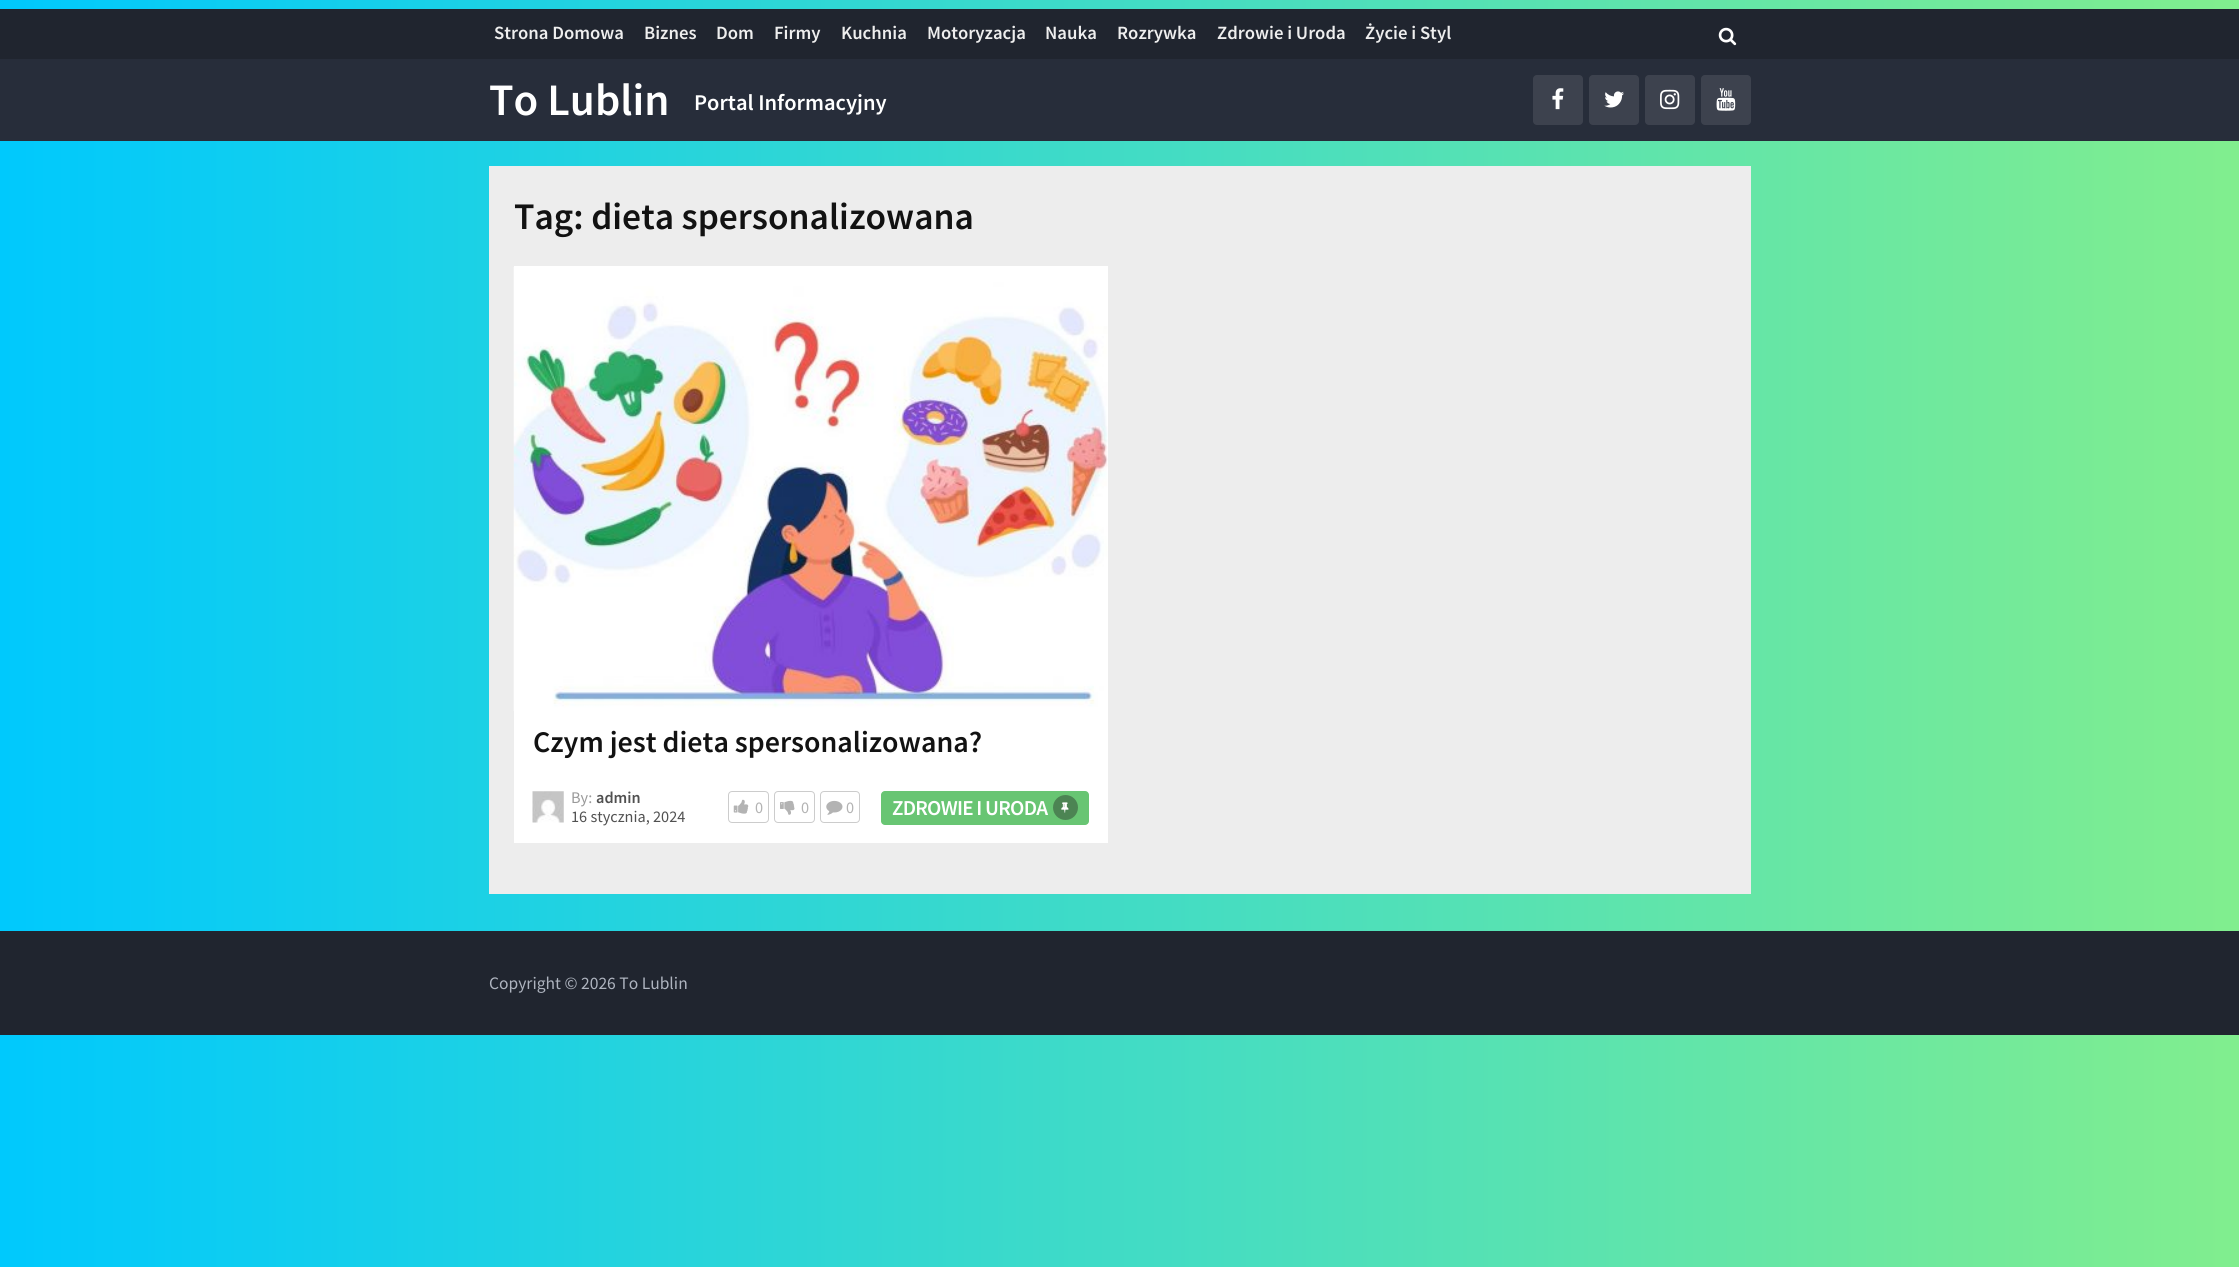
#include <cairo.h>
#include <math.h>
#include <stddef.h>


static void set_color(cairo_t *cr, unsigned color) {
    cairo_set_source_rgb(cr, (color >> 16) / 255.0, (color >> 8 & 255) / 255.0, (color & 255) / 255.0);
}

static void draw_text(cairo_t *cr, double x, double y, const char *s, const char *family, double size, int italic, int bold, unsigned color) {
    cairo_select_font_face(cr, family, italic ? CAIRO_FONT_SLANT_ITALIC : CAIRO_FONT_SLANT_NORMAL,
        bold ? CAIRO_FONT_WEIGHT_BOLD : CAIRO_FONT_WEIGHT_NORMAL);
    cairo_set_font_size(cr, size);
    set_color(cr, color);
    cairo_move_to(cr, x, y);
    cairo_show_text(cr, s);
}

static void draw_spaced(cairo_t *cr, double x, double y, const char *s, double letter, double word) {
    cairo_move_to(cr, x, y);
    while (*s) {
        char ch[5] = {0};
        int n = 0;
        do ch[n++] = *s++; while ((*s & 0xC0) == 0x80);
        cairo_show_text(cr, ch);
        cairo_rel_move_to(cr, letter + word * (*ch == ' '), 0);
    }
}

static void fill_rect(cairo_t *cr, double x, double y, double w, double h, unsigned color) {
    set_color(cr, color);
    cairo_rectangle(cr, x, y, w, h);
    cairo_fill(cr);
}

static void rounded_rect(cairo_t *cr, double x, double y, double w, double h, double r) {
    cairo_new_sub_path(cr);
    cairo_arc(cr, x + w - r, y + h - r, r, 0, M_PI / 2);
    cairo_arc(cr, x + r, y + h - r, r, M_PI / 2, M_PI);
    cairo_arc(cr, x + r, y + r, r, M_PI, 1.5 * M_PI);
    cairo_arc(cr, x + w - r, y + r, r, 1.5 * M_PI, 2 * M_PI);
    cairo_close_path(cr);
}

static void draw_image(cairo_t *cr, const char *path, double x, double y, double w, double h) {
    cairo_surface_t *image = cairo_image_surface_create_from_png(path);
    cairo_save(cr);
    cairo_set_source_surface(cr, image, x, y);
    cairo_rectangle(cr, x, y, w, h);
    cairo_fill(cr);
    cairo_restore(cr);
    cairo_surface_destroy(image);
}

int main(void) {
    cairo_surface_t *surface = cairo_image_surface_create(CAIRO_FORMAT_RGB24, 2239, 1267);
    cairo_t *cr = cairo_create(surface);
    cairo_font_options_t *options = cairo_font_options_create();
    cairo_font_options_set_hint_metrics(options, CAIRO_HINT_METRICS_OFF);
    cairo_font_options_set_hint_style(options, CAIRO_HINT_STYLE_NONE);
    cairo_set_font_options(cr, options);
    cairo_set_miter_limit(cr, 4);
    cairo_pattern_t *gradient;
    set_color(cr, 0xFFFFFF);
    cairo_paint(cr);
    gradient = cairo_pattern_create_linear(0, 522, 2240, 522);
    cairo_pattern_add_color_stop_rgba(gradient, 0, 0, 0.788, 0.992, 1);
    cairo_pattern_add_color_stop_rgba(gradient, 1, 0.506, 0.933, 0.557, 1);
    cairo_set_source(cr, gradient);
    cairo_pattern_destroy(gradient);
    cairo_rectangle(cr, 0, 0, 2239, 1267);
    cairo_fill(cr);
    fill_rect(cr, 0, 9, 2239, 50, 0x20252F);
    draw_text(cr, 494, 39, "Strona Domowa", "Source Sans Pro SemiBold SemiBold", 18.75, 0, 0, 0xEEEEEE);
    draw_text(cr, 644, 39, "Biznes", "Source Sans Pro SemiBold SemiBold", 18.75, 0, 0, 0xEEEEEE);
    draw_text(cr, 716, 39, "Dom", "Source Sans Pro SemiBold SemiBold", 18.75, 0, 0, 0xEEEEEE);
    draw_text(cr, 774, 39, "Firmy", "Source Sans Pro SemiBold SemiBold", 18.75, 0, 0, 0xEEEEEE);
    draw_text(cr, 841, 39, "Kuchnia", "Source Sans Pro SemiBold SemiBold", 18.75, 0, 0, 0xEEEEEE);
    draw_text(cr, 927, 39, "Motoryzacja", "Source Sans Pro SemiBold SemiBold", 18.75, 0, 0, 0xEEEEEE);
    draw_text(cr, 1045, 39, "Nauka", "Source Sans Pro SemiBold SemiBold", 18.75, 0, 0, 0xEEEEEE);
    draw_text(cr, 1117, 39, "Rozrywka", "Source Sans Pro SemiBold SemiBold", 18.75, 0, 0, 0xEEEEEE);
    draw_text(cr, 1217, 39, "Zdrowie i Uroda", "Source Sans Pro SemiBold SemiBold", 18.75, 0, 0, 0xEEEEEE);
    draw_text(cr, 1365, 39, "Życie i Styl", "Source Sans Pro SemiBold SemiBold", 18.75, 0, 0, 0xEEEEEE);
    draw_image(cr, "assets/img1.png", 1718, 27, 19, 19);
    fill_rect(cr, 0, 59, 2239, 82, 0x272D3A);
    draw_text(cr, 489, 115, "To Lublin", "Source Sans Pro SemiBold SemiBold", 45, 0, 0, 0xFFFFFF);
    draw_text(cr, 694, 110, "Portal Informacyjny", "Source Sans Pro SemiBold SemiBold", 22.5, 0, 0, 0xFFFFFF);
    set_color(cr, 0x3D424E);
    rounded_rect(cr, 1533, 75, 50, 50, 4);
    cairo_fill(cr);
    draw_image(cr, "assets/img2.png", 1552, 88, 12, 22);
    rounded_rect(cr, 1589, 75, 50, 50, 4);
    cairo_fill(cr);
    draw_image(cr, "assets/img3.png", 1604, 91, 20, 17);
    rounded_rect(cr, 1645, 75, 50, 50, 4);
    cairo_fill(cr);
    draw_image(cr, "assets/img4.png", 1660, 89, 20, 21);
    rounded_rect(cr, 1701, 75, 50, 50, 4);
    cairo_fill(cr);
    draw_image(cr, "assets/img5.png", 1716, 88, 20, 23);
    fill_rect(cr, 489, 166, 1262, 728, 0xEDEDED);
    draw_text(cr, 514, 229, "Tag: dieta spersonalizowana", "Source Sans Pro SemiBold SemiBold", 37.5, 0, 0, 0x121212);
    fill_rect(cr, 514, 266, 594, 577, 0xFFFFFF);
    draw_image(cr, "assets/img6.png", 513, 267, 595, 444);
    draw_text(cr, 533, 752, "Czym jest dieta spersonalizowana?", "Source Sans Pro SemiBold SemiBold", 30, 0, 0, 0x121212);
    draw_image(cr, "assets/img7.png", 532, 791, 32, 32);
    draw_text(cr, 571, 803, "By:", "Source Sans Pro", 16.25, 0, 0, 0x999999);
    draw_text(cr, 596, 803, "admin", "Source Sans Pro SemiBold SemiBold", 16.25, 0, 0, 0x515151);
    draw_text(cr, 571, 822, "16 stycznia, 2024", "Source Sans Pro", 16.25, 0, 0, 0x515151);
    rounded_rect(cr, 728.5, 791.5, 40, 31, 3.5);
    set_color(cr, 0xCCCCCC);
    cairo_set_line_width(cr, 1);
    cairo_stroke(cr);
    draw_image(cr, "assets/img8.png", 733, 799, 16, 15);
    draw_text(cr, 755, 813, "0", "Source Sans Pro", 16.25, 0, 0, 0xB3B3B3);
    rounded_rect(cr, 774.5, 791.5, 40, 31, 3.5);
    set_color(cr, 0xCCCCCC);
    cairo_stroke(cr);
    draw_image(cr, "assets/img9.png", 780, 800, 15, 15);
    draw_text(cr, 801, 813, "0", "Source Sans Pro", 16.25, 0, 0, 0xB3B3B3);
    rounded_rect(cr, 820.5, 791.5, 39, 31, 3.5);
    set_color(cr, 0xCCCCCC);
    cairo_stroke(cr);
    draw_image(cr, "assets/img10.png", 826, 800, 17, 15);
    draw_text(cr, 846, 813, "0", "Source Sans Pro", 16.25, 0, 0, 0xB3B3B3);
    set_color(cr, 0x68C573);
    rounded_rect(cr, 881, 791, 208, 34, 4);
    cairo_fill(cr);
    cairo_select_font_face(cr, "Source Sans Pro SemiBold SemiBold", CAIRO_FONT_SLANT_NORMAL, CAIRO_FONT_WEIGHT_NORMAL);
    cairo_set_font_size(cr, 21.25);
    set_color(cr, 0xFFFFFF);
    draw_spaced(cr, 892, 815, "ZDROWIE I URODA", -0.75, 0);
    set_color(cr, 0x4C8453);
    cairo_new_path(cr);
    cairo_arc(cr, 1065.5, 807.5, 12.5, 0, 2 * M_PI);
    cairo_fill(cr);
    draw_image(cr, "assets/img11.png", 1061, 802, 8, 11);
    fill_rect(cr, 0, 931, 2239, 104, 0x20252F);
    draw_text(cr, 489, 989, "Copyright © 2026 To Lublin", "Source Sans Pro", 17.5, 0, 0, 0xAEB4BF);
    cairo_surface_write_to_png(surface, "output.png");
    cairo_font_options_destroy(options);
    cairo_destroy(cr);
    cairo_surface_destroy(surface);
    return 0;
}
